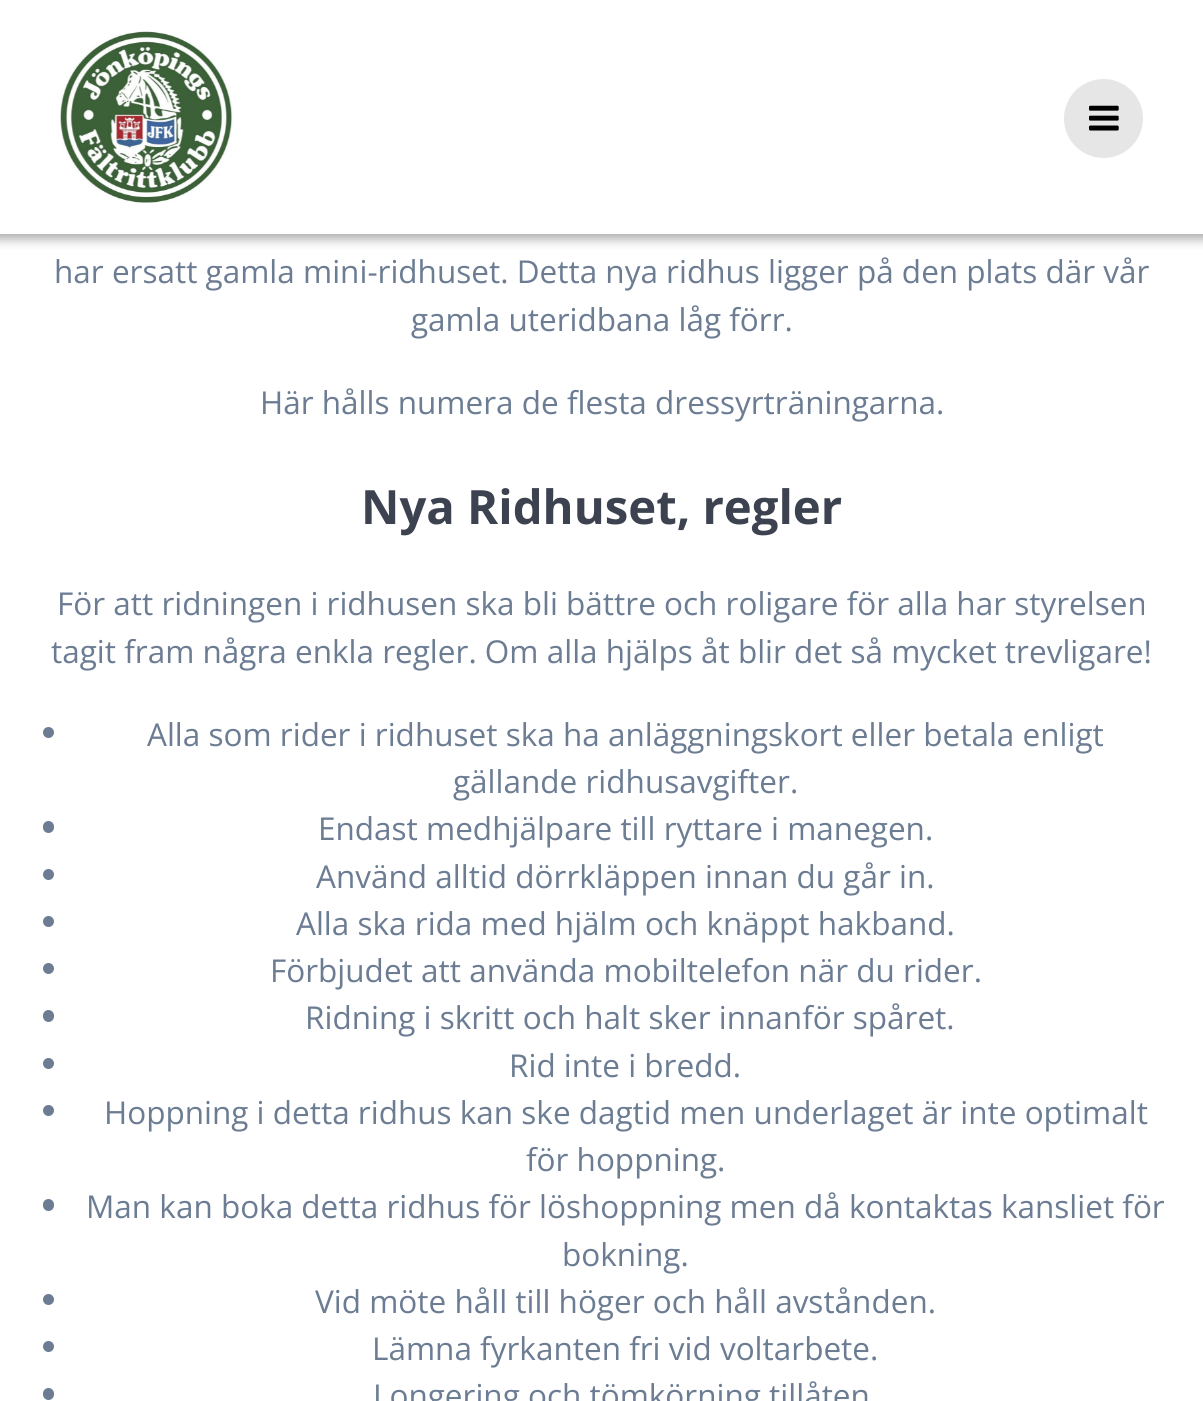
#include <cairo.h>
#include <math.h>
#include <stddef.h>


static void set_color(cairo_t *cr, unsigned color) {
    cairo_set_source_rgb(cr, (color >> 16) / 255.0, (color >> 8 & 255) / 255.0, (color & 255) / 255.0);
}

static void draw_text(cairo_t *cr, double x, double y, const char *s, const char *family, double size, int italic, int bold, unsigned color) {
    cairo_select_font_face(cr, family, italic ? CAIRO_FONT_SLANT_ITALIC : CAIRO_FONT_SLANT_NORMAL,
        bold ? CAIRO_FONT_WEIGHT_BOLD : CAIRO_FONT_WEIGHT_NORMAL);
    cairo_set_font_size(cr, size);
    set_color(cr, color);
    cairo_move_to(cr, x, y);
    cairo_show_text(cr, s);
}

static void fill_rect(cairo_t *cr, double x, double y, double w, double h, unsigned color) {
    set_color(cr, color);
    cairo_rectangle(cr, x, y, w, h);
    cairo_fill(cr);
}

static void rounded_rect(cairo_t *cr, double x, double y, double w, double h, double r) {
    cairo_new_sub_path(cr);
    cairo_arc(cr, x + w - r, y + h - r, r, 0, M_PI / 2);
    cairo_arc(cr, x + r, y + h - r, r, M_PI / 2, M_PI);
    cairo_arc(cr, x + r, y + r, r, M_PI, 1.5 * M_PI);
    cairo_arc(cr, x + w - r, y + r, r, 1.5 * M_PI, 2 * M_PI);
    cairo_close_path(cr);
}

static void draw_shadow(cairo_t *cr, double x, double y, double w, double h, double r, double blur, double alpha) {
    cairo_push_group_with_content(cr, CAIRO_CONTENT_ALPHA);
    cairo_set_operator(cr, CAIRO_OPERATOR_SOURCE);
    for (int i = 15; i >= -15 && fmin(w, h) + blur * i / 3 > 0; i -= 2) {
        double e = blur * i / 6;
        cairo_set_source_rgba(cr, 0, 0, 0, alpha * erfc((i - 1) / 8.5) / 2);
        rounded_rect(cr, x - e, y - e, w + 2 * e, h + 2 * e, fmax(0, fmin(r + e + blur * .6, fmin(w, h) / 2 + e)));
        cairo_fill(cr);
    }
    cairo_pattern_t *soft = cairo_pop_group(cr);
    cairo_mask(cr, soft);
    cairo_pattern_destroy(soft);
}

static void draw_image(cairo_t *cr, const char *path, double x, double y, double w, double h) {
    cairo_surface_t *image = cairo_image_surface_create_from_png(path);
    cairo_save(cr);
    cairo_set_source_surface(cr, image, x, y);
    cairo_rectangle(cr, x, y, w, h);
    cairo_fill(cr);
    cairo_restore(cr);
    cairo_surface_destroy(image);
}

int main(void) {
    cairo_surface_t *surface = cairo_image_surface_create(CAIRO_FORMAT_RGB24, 1203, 1401);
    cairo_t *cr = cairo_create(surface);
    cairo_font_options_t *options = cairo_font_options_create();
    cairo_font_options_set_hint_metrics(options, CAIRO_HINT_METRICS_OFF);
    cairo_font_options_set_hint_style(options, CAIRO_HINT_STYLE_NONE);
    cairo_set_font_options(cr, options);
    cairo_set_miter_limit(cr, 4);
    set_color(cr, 0xFFFFFF);
    cairo_paint(cr);
    set_color(cr, 0x000000);
    draw_shadow(cr, -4, -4, 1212, 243, 0, 5.5, 0.33);
    fill_rect(cr, 0, 0, 1203, 234, 0xFFFFFF);
    draw_image(cr, "assets/img1.png", 60, 31, 172, 172);
    set_color(cr, 0xE6E6E6);
    cairo_arc(cr, 1103.5, 118.5, 39.5, 0, 2 * M_PI);
    cairo_fill(cr);
    draw_image(cr, "assets/img2.png", 1089, 105, 30, 26);
    draw_text(cr, 54, 283, "har ersatt gamla mini-ridhuset. Detta nya ridhus ligger på den plats där vår", "Open Sans", 31.5, 0, 0, 0x6B7C93);
    draw_text(cr, 411, 331, "gamla uteridbana låg förr.", "Open Sans", 31.5, 0, 0, 0x6B7C93);
    draw_text(cr, 260, 414, "Här hålls numera de flesta dressyrträningarna.", "Open Sans", 31.5, 0, 0, 0x6B7C93);
    draw_text(cr, 361, 524, "Nya Ridhuset, regler", "Open Sans", 47.25, 0, 1, 0x3C424F);
    draw_text(cr, 57, 615, "För att ridningen i ridhusen ska bli bättre och roligare för alla har styrelsen", "Open Sans", 31.5, 0, 0, 0x6B7C93);
    draw_text(cr, 51, 663, "tagit fram några enkla regler. Om alla hjälps åt blir det så mycket trevligare!", "Open Sans", 31.5, 0, 0, 0x6B7C93);
    cairo_new_path(cr);
    cairo_arc(cr, 48.5, 732.5, 5.5, 0, 2 * M_PI);
    cairo_fill(cr);
    draw_text(cr, 147, 746, "Alla som rider i ridhuset ska ha anläggningskort eller betala enligt", "Open Sans", 31.5, 0, 0, 0x6B7C93);
    draw_text(cr, 453, 793, "gällande ridhusavgifter.", "Open Sans", 31.5, 0, 0, 0x6B7C93);
    rounded_rect(cr, 43, 821, 11, 12, 5.5);
    cairo_fill(cr);
    draw_text(cr, 318, 840, "Endast medhjälpare till ryttare i manegen.", "Open Sans", 31.5, 0, 0, 0x6B7C93);
    cairo_new_path(cr);
    cairo_arc(cr, 48.5, 874.5, 5.5, 0, 2 * M_PI);
    cairo_fill(cr);
    draw_text(cr, 316, 888, "Använd alltid dörrkläppen innan du går in.", "Open Sans", 31.5, 0, 0, 0x6B7C93);
    cairo_new_path(cr);
    cairo_arc(cr, 48.5, 921.5, 5.5, 0, 2 * M_PI);
    cairo_fill(cr);
    draw_text(cr, 296, 935, "Alla ska rida med hjälm och knäppt hakband.", "Open Sans", 31.5, 0, 0, 0x6B7C93);
    cairo_new_path(cr);
    cairo_arc(cr, 48.5, 968.5, 5.5, 0, 2 * M_PI);
    cairo_fill(cr);
    draw_text(cr, 270, 982, "Förbjudet att använda mobiltelefon när du rider.", "Open Sans", 31.5, 0, 0, 0x6B7C93);
    rounded_rect(cr, 43, 1010, 11, 12, 5.5);
    cairo_fill(cr);
    draw_text(cr, 305, 1029, "Ridning i skritt och halt sker innanför spåret.", "Open Sans", 31.5, 0, 0, 0x6B7C93);
    cairo_new_path(cr);
    cairo_arc(cr, 48.5, 1063.5, 5.5, 0, 2 * M_PI);
    cairo_fill(cr);
    draw_text(cr, 509, 1077, "Rid inte i bredd.", "Open Sans", 31.5, 0, 0, 0x6B7C93);
    cairo_new_path(cr);
    cairo_arc(cr, 48.5, 1110.5, 5.5, 0, 2 * M_PI);
    cairo_fill(cr);
    draw_text(cr, 104, 1124, "Hoppning i detta ridhus kan ske dagtid men underlaget är inte optimalt", "Open Sans", 31.5, 0, 0, 0x6B7C93);
    draw_text(cr, 526, 1171, "för hoppning.", "Open Sans", 31.5, 0, 0, 0x6B7C93);
    rounded_rect(cr, 43, 1199, 11, 12, 5.5);
    cairo_fill(cr);
    draw_text(cr, 86, 1218, "Man kan boka detta ridhus för löshoppning men då kontaktas kansliet för", "Open Sans", 31.5, 0, 0, 0x6B7C93);
    draw_text(cr, 562, 1266, "bokning.", "Open Sans", 31.5, 0, 0, 0x6B7C93);
    cairo_new_path(cr);
    cairo_arc(cr, 48.5, 1299.5, 5.5, 0, 2 * M_PI);
    cairo_fill(cr);
    draw_text(cr, 315, 1313, "Vid möte håll till höger och håll avstånden.", "Open Sans", 31.5, 0, 0, 0x6B7C93);
    cairo_new_path(cr);
    cairo_arc(cr, 48.5, 1346.5, 5.5, 0, 2 * M_PI);
    cairo_fill(cr);
    draw_text(cr, 372, 1360, "Lämna fyrkanten fri vid voltarbete.", "Open Sans", 31.5, 0, 0, 0x6B7C93);
    rounded_rect(cr, 43, 1388, 11, 12, 5.5);
    cairo_fill(cr);
    draw_text(cr, 373, 1407, "Longering och tömkörning tillåten", "Open Sans", 31.5, 0, 0, 0x6B7C93);
    cairo_surface_write_to_png(surface, "output.png");
    cairo_font_options_destroy(options);
    cairo_destroy(cr);
    cairo_surface_destroy(surface);
    return 0;
}
